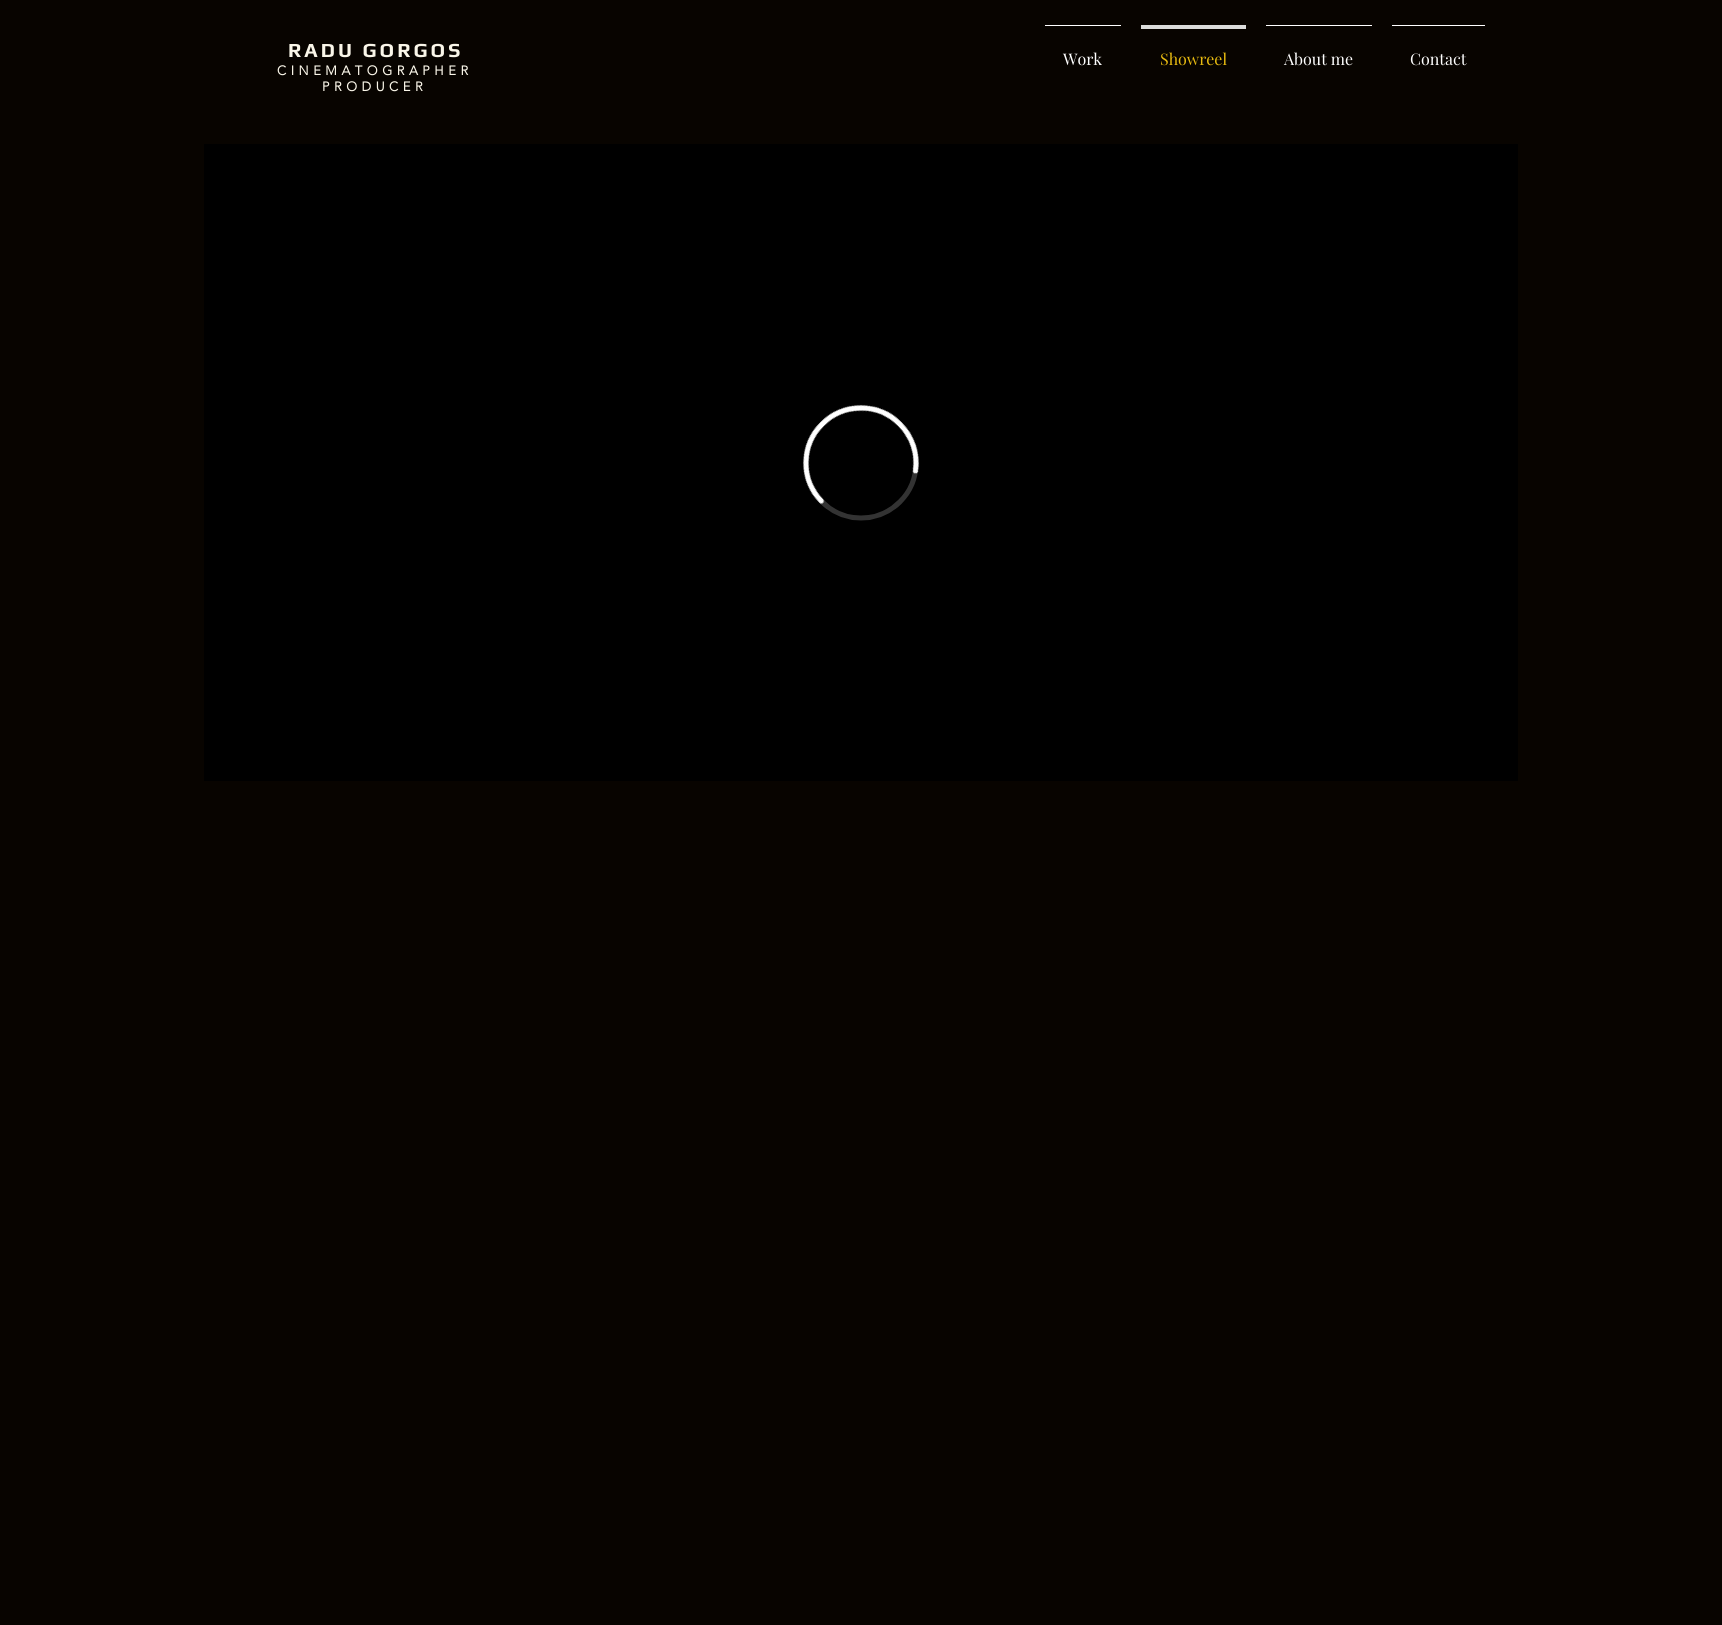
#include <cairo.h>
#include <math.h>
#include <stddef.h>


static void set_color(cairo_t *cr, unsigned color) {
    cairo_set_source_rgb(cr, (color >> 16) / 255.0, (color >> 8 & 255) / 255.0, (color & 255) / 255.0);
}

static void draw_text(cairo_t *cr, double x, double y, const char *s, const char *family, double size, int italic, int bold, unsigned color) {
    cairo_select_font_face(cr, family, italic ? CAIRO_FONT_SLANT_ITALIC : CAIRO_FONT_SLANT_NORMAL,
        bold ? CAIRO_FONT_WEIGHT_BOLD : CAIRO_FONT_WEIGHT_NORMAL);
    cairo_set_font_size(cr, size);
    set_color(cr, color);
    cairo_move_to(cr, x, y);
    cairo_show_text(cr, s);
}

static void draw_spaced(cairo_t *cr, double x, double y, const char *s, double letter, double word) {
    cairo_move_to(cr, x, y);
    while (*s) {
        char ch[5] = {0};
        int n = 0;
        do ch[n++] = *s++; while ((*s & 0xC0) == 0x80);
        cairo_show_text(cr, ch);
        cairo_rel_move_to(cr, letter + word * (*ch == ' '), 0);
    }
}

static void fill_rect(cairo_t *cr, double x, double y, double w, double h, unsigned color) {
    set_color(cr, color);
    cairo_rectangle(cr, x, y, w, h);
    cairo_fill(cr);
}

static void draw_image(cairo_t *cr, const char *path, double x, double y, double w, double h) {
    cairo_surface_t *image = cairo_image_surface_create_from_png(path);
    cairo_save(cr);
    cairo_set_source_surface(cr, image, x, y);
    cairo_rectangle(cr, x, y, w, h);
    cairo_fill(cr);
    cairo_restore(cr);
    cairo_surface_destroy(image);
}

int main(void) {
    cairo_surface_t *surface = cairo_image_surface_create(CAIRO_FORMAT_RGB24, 1722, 1625);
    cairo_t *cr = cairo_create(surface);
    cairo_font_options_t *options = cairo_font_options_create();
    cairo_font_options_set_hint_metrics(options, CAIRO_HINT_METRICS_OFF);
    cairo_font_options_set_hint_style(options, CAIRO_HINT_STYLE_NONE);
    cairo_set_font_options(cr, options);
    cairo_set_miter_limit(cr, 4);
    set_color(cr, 0x080400);
    cairo_paint(cr);
    cairo_select_font_face(cr, "Play", CAIRO_FONT_SLANT_NORMAL, CAIRO_FONT_WEIGHT_BOLD);
    cairo_set_font_size(cr, 20);
    set_color(cr, 0xFAF6E9);
    draw_spaced(cr, 288, 57, "RADU GORGOS", 3, 0);
    fill_rect(cr, 1045, 25, 76, 1, 0xFFFFFF);
    draw_text(cr, 1063, 65, "Work", "Playfair Display", 16, 0, 0, 0xFFFFFF);
    fill_rect(cr, 1141, 25, 105, 4, 0xDCDCDB);
    draw_text(cr, 1160, 65, "Showreel", "Playfair Display", 16, 0, 0, 0xE8BB10);
    fill_rect(cr, 1266, 25, 106, 1, 0xFFFFFF);
    draw_text(cr, 1284, 65, "About me", "Playfair Display", 16, 0, 0, 0xFFFFFF);
    fill_rect(cr, 1392, 25, 93, 1, 0xFFFFFF);
    draw_text(cr, 1410, 65, "Contact", "Playfair Display", 16, 0, 0, 0xFFFFFF);
    cairo_select_font_face(cr, "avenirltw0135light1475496", CAIRO_FONT_SLANT_NORMAL, CAIRO_FONT_WEIGHT_BOLD);
    cairo_set_font_size(cr, 13);
    set_color(cr, 0xFAF6E9);
    draw_spaced(cr, 277, 75, "CINEMATOGRAPHER", 4.5, 0);
    draw_spaced(cr, 322, 91, "PRODUCER", 4.5, 0);
    draw_image(cr, "assets/img1.png", 204, 144, 1314, 637);
    cairo_surface_write_to_png(surface, "output.png");
    cairo_font_options_destroy(options);
    cairo_destroy(cr);
    cairo_surface_destroy(surface);
    return 0;
}
